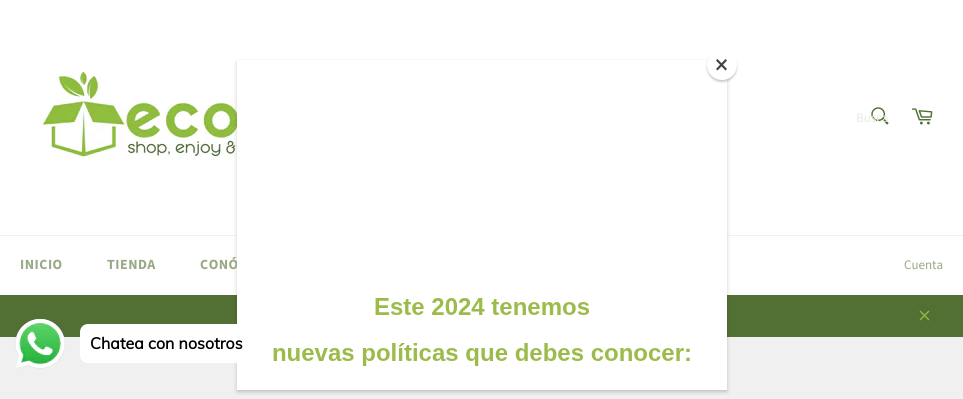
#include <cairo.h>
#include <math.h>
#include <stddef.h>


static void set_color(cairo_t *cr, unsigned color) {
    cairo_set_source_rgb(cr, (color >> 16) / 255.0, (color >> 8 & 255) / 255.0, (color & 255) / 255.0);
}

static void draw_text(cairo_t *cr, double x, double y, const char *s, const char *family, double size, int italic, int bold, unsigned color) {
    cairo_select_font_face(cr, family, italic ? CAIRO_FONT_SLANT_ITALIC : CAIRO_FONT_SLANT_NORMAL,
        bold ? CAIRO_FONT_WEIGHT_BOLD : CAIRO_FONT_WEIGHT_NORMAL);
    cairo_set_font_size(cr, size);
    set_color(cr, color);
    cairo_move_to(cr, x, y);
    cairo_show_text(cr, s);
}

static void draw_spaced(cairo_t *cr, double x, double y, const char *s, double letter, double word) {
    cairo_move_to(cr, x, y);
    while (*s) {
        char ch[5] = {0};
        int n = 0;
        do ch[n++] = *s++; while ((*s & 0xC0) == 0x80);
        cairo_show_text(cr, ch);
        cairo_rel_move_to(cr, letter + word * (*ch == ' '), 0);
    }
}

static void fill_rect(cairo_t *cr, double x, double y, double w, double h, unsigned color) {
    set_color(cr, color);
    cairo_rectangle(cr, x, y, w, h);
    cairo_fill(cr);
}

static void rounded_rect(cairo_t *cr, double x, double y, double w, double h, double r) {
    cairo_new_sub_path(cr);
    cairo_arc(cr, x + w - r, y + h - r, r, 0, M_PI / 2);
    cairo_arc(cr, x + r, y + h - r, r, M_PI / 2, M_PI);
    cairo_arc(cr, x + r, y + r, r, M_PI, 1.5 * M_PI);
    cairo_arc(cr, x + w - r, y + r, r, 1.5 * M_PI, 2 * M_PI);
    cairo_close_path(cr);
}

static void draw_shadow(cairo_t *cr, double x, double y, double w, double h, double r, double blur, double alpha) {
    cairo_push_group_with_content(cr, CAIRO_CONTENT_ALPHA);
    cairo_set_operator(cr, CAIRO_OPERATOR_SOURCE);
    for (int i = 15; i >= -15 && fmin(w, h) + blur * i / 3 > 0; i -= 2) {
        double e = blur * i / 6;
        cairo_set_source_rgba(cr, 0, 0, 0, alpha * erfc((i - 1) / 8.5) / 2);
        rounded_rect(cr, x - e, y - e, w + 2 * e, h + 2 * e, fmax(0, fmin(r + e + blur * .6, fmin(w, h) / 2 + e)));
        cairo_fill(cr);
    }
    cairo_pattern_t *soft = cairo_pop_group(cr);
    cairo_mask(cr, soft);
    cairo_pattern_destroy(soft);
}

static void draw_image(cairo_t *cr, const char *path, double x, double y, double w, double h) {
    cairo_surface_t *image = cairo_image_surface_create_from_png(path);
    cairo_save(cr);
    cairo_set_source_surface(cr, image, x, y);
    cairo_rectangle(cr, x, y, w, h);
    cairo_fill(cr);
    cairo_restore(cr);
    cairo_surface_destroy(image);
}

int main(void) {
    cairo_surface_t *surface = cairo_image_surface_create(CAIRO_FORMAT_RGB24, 963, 399);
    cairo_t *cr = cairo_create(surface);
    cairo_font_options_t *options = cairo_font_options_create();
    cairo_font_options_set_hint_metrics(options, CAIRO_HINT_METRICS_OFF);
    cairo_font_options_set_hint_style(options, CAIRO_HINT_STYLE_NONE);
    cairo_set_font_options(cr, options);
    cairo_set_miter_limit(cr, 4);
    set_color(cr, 0xF0F0F0);
    cairo_paint(cr);
    fill_rect(cr, 0, 0, 963, 235, 0xFFFFFF);
    set_color(cr, 0x000000);
    draw_shadow(cr, 707, 52, 30, 30, 15, 1, 0.2);
    draw_image(cr, "assets/img2.png", 40, 70, 420, 90);
    fill_rect(cr, 0, 236, 963, 59, 0xFFFFFF);
    fill_rect(cr, 0, 295, 963, 42, 0x527034);
    cairo_save(cr);
    cairo_set_fill_rule(cr, CAIRO_FILL_RULE_EVEN_ODD);
    cairo_new_path(cr);
    cairo_move_to(cr, 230, 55);
    cairo_line_to(cr, 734, 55);
    cairo_line_to(cr, 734, 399);
    cairo_line_to(cr, 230, 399);
    cairo_close_path(cr);
    cairo_move_to(cr, 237, 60);
    cairo_line_to(cr, 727, 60);
    cairo_line_to(cr, 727, 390);
    cairo_line_to(cr, 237, 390);
    cairo_close_path(cr);
    cairo_clip(cr);
    set_color(cr, 0x000000);
    draw_shadow(cr, 237, 62, 490, 330, 0, 2, 0.2);
    cairo_restore(cr);
    set_color(cr, 0xFFFFFF);
    cairo_arc(cr, 722, 65, 15, 0, 2 * M_PI);
    cairo_fill(cr);
    set_color(cr, 0x414141);
    cairo_new_path(cr);
    cairo_move_to(cr, 725.5, 59);
    cairo_line_to(cr, 727, 60.5);
    cairo_line_to(cr, 717.5, 70.5);
    cairo_line_to(cr, 716, 69);
    cairo_close_path(cr);
    cairo_fill(cr);
    cairo_new_path(cr);
    cairo_move_to(cr, 716, 60.5);
    cairo_line_to(cr, 717.5, 59);
    cairo_line_to(cr, 727, 69);
    cairo_line_to(cr, 725.5, 70.5);
    cairo_close_path(cr);
    cairo_fill(cr);
    cairo_select_font_face(cr, "Source Sans Pro", CAIRO_FONT_SLANT_NORMAL, CAIRO_FONT_WEIGHT_BOLD);
    cairo_set_font_size(cr, 14);
    set_color(cr, 0x97A985);
    draw_spaced(cr, 200, 269, "CONÓ", 0.5, 0);
    draw_image(cr, "assets/img1.png", 237, 92, 490, 298);
    draw_image(cr, "assets/img3.png", 871, 107, 18, 18);
    draw_text(cr, 856, 122, "Busca", "Source Sans Pro", 13, 0, 0, 0xE6EBE2);
    draw_image(cr, "assets/img4.png", 911, 108, 22, 17);
    cairo_select_font_face(cr, "Source Sans Pro", CAIRO_FONT_SLANT_NORMAL, CAIRO_FONT_WEIGHT_BOLD);
    cairo_set_font_size(cr, 14);
    set_color(cr, 0x97A985);
    draw_spaced(cr, 20, 269, "INICIO", 0.5, 0);
    draw_spaced(cr, 107, 269, "TIENDA", 0.5, 0);
    draw_text(cr, 904, 269, "Cuenta", "Source Sans Pro", 13, 0, 0, 0x97A985);
    draw_image(cr, "assets/img5.png", 919, 310, 11, 11);
    draw_image(cr, "assets/img6.png", 15, 319, 50, 50);
    set_color(cr, 0xFFFFFF);
    rounded_rect(cr, 80, 324, 172, 39, 8);
    cairo_fill(cr);
    draw_text(cr, 90, 349, "Chatea con nosotros", "Muli", 16, 0, 1, 0x000000);
    cairo_surface_write_to_png(surface, "output.png");
    cairo_font_options_destroy(options);
    cairo_destroy(cr);
    cairo_surface_destroy(surface);
    return 0;
}
